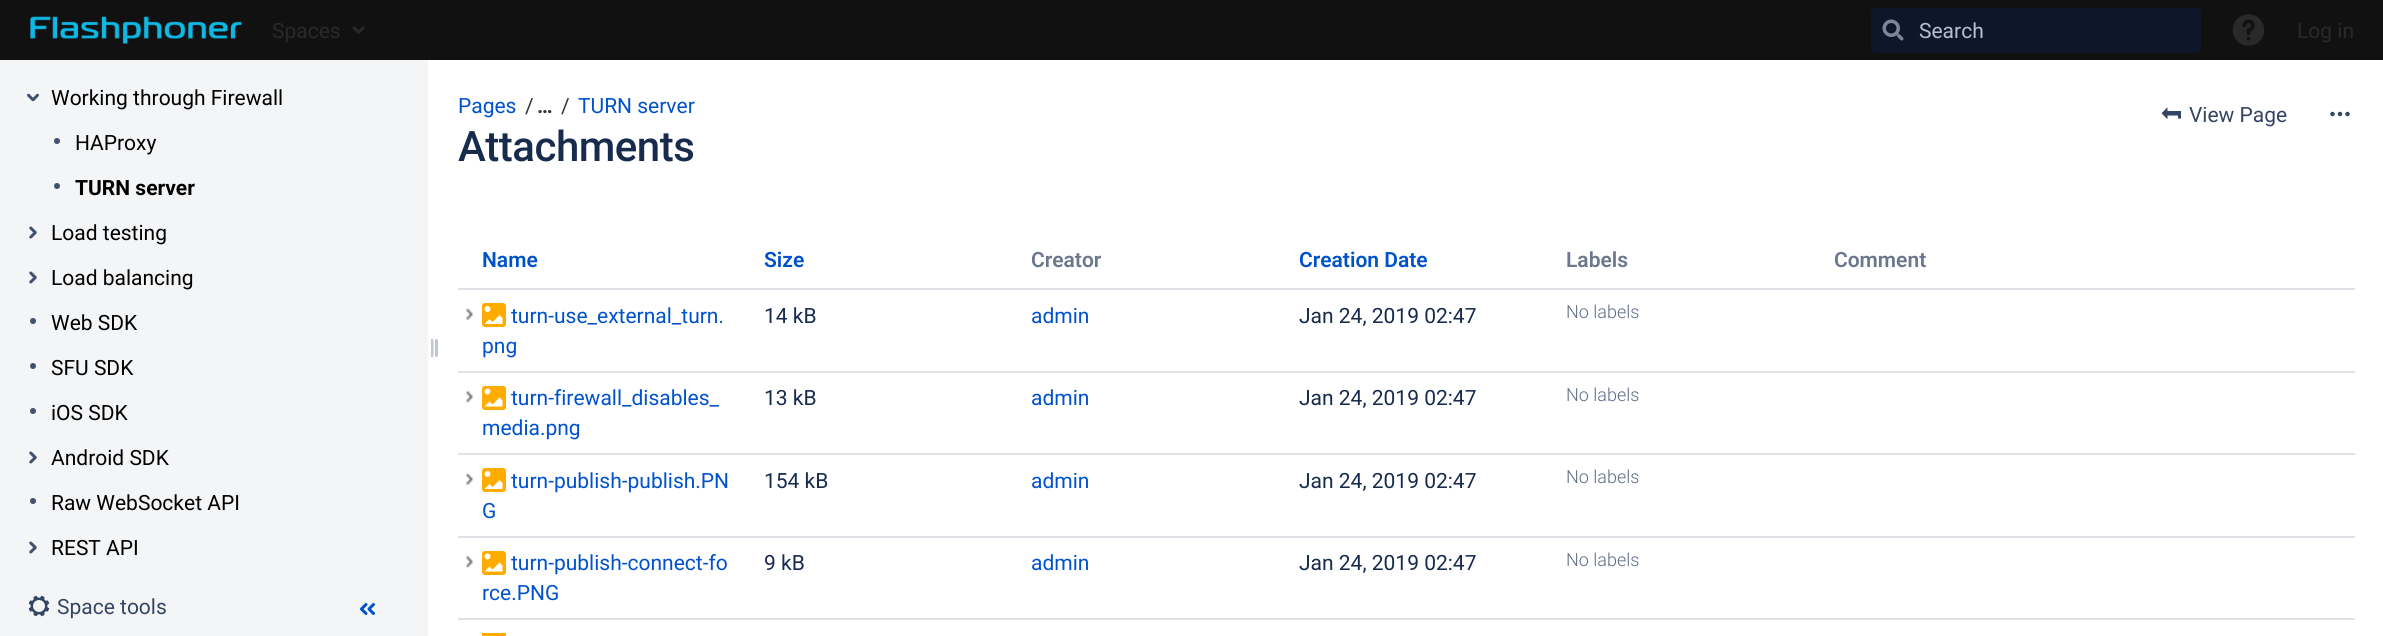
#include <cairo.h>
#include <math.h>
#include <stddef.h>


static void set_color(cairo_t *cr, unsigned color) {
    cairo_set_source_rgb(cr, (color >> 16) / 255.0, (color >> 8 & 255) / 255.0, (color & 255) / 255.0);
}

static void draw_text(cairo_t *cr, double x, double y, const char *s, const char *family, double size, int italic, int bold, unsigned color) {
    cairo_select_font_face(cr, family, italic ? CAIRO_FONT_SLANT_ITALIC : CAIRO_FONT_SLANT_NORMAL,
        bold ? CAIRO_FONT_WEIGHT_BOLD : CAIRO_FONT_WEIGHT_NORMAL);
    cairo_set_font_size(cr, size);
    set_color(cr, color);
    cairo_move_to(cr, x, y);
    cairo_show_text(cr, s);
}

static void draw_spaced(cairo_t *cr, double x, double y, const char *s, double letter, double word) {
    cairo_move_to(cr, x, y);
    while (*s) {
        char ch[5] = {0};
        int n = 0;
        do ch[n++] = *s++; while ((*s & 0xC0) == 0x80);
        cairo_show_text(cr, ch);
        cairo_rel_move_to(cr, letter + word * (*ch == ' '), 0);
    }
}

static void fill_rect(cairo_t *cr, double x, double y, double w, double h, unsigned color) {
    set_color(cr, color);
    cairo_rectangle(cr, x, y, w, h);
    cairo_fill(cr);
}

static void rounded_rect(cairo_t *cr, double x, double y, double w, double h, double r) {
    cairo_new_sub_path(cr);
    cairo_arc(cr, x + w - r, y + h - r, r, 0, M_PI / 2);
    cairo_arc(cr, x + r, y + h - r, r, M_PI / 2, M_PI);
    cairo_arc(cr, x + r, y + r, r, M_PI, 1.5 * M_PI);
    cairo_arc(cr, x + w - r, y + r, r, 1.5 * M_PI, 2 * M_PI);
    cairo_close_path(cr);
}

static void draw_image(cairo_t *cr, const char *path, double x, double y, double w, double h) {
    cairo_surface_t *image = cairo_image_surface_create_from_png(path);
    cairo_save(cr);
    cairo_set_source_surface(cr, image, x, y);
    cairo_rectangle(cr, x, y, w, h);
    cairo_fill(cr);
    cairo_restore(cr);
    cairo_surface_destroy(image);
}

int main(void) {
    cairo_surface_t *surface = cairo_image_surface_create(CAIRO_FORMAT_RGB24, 2383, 636);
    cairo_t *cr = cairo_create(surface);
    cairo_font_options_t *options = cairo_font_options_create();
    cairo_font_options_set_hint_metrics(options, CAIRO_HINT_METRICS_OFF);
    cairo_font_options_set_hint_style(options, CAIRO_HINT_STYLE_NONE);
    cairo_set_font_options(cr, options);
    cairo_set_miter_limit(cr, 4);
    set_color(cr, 0xF4F5F7);
    cairo_paint(cr);
    fill_rect(cr, 0, 0, 2383, 60, 0x111111);
    draw_image(cr, "assets/img1.png", 30, 16, 212, 28);
    draw_text(cr, 272, 38, "Spaces", "Roboto", 21, 0, 0, 0x292929);
    draw_image(cr, "assets/img2.png", 352, 26, 13, 8);
    set_color(cr, 0x0D1729);
    rounded_rect(cr, 1871, 8, 330, 45, 5);
    cairo_fill(cr);
    draw_image(cr, "assets/img3.png", 1882, 19, 22, 22);
    draw_text(cr, 1919, 38, "Search", "Roboto", 21, 0, 0, 0xB4C1D4);
    draw_image(cr, "assets/img4.png", 2232, 14, 33, 32);
    draw_text(cr, 2297, 38, "Log in", "Roboto", 21, 0, 0, 0x292929);
    draw_image(cr, "assets/img5.png", 27, 93, 12, 9);
    draw_text(cr, 51, 105, "Working through Firewall", "Roboto", 21, 0, 0, 0x000000);
    set_color(cr, 0x42526E);
    cairo_new_path(cr);
    cairo_arc(cr, 57, 141, 3, 0, 2 * M_PI);
    cairo_fill(cr);
    draw_text(cr, 75, 150, "HAProxy", "Roboto", 21, 0, 0, 0x000000);
    set_color(cr, 0x42526E);
    cairo_new_path(cr);
    cairo_arc(cr, 57, 186, 3, 0, 2 * M_PI);
    cairo_fill(cr);
    draw_text(cr, 75, 195, "TURN server", "Roboto", 21, 0, 1, 0x000000);
    draw_image(cr, "assets/img6.png", 29, 226, 8, 13);
    draw_text(cr, 51, 240, "Load testing", "Roboto", 21, 0, 0, 0x000000);
    draw_image(cr, "assets/img6.png", 29, 271, 8, 13);
    draw_text(cr, 51, 285, "Load balancing", "Roboto", 21, 0, 0, 0x000000);
    set_color(cr, 0x42526E);
    cairo_new_path(cr);
    cairo_arc(cr, 33, 321, 3, 0, 2 * M_PI);
    cairo_fill(cr);
    draw_text(cr, 51, 330, "Web SDK", "Roboto", 21, 0, 0, 0x000000);
    set_color(cr, 0x42526E);
    cairo_new_path(cr);
    cairo_arc(cr, 33, 366, 3, 0, 2 * M_PI);
    cairo_fill(cr);
    draw_text(cr, 51, 375, "SFU SDK", "Roboto", 21, 0, 0, 0x000000);
    set_color(cr, 0x42526E);
    cairo_new_path(cr);
    cairo_arc(cr, 33, 411, 3, 0, 2 * M_PI);
    cairo_fill(cr);
    draw_text(cr, 51, 420, "iOS SDK", "Roboto", 21, 0, 0, 0x000000);
    draw_image(cr, "assets/img6.png", 29, 451, 8, 13);
    draw_text(cr, 51, 465, "Android SDK", "Roboto", 21, 0, 0, 0x000000);
    set_color(cr, 0x42526E);
    cairo_new_path(cr);
    cairo_arc(cr, 33, 501, 3, 0, 2 * M_PI);
    cairo_fill(cr);
    draw_text(cr, 51, 510, "Raw WebSocket API", "Roboto", 21, 0, 0, 0x000000);
    draw_image(cr, "assets/img6.png", 29, 541, 8, 13);
    draw_text(cr, 51, 555, "REST API", "Roboto", 21, 0, 0, 0x000000);
    fill_rect(cr, 428, 60, 1955, 576, 0xFFFFFF);
    draw_image(cr, "assets/img7.png", 431, 339, 7, 18);
    draw_image(cr, "assets/img8.png", 28, 595, 22, 22);
    draw_text(cr, 57, 614, "Space tools", "Roboto", 21, 0, 0, 0x344563);
    draw_image(cr, "assets/img9.png", 360, 603, 15, 12);
    draw_text(cr, 458, 113, "Pages", "Roboto", 21, 0, 0, 0x0052CC);
    draw_text(cr, 525, 113, "/", "Roboto", 21, 0, 0, 0x333333);
    draw_text(cr, 537, 113, "…", "Roboto", 21, 0, 1, 0x333333);
    draw_text(cr, 561, 113, "/", "Roboto", 21, 0, 0, 0x333333);
    draw_text(cr, 578, 113, "TURN server", "Roboto", 21, 0, 0, 0x0052CC);
    cairo_select_font_face(cr, "Roboto Medium", CAIRO_FONT_SLANT_NORMAL, CAIRO_FONT_WEIGHT_NORMAL);
    cairo_set_font_size(cr, 42);
    set_color(cr, 0x172B4D);
    draw_spaced(cr, 458, 161, "Attachments", -0.5, 0);
    draw_image(cr, "assets/img10.png", 2161, 107, 20, 13);
    draw_text(cr, 2189, 122, "View Page", "Roboto", 21, 0, 0, 0x344563);
    draw_image(cr, "assets/img11.png", 2330, 111, 20, 6);
    draw_text(cr, 482, 267, "Name", "Roboto SemiBold", 21, 0, 0, 0x0052CC);
    draw_text(cr, 764, 267, "Size", "Roboto SemiBold", 21, 0, 0, 0x0052CC);
    draw_text(cr, 1031, 267, "Creator", "Roboto SemiBold", 21, 0, 0, 0x6B778C);
    draw_text(cr, 1299, 267, "Creation Date", "Roboto SemiBold", 21, 0, 0, 0x0052CC);
    draw_text(cr, 1566, 267, "Labels", "Roboto SemiBold", 21, 0, 0, 0x6B778C);
    draw_text(cr, 1834, 267, "Comment", "Roboto SemiBold", 21, 0, 0, 0x6B778C);
    fill_rect(cr, 458, 288, 1897, 2, 0xDFE1E6);
    draw_image(cr, "assets/img12.png", 466, 308, 7, 12);
    draw_image(cr, "assets/img13.png", 482, 303, 24, 24);
    draw_text(cr, 511, 323, "turn-use_external_turn.", "Roboto", 21, 0, 0, 0x0052CC);
    draw_text(cr, 482, 353, "png", "Roboto", 21, 0, 0, 0x0052CC);
    draw_text(cr, 764, 323, "14 kB", "Roboto", 21, 0, 0, 0x172B4D);
    draw_text(cr, 1031, 323, "admin", "Roboto", 21, 0, 0, 0x0052CC);
    draw_text(cr, 1299, 323, "Jan 24, 2019 02:47", "Roboto", 21, 0, 0, 0x172B4D);
    draw_text(cr, 1566, 318, "No labels", "Roboto Light", 18, 0, 0, 0x5E6C84);
    fill_rect(cr, 458, 371, 1897, 2, 0xDFE1E6);
    draw_image(cr, "assets/img14.png", 466, 391, 7, 12);
    draw_image(cr, "assets/img15.png", 482, 386, 24, 24);
    draw_text(cr, 511, 405, "turn-firewall_disables_", "Roboto", 21, 0, 0, 0x0052CC);
    draw_text(cr, 482, 435, "media.png", "Roboto", 21, 0, 0, 0x0052CC);
    draw_text(cr, 764, 405, "13 kB", "Roboto", 21, 0, 0, 0x172B4D);
    draw_text(cr, 1031, 405, "admin", "Roboto", 21, 0, 0, 0x0052CC);
    draw_text(cr, 1299, 405, "Jan 24, 2019 02:47", "Roboto", 21, 0, 0, 0x172B4D);
    draw_text(cr, 1566, 401, "No labels", "Roboto Light", 18, 0, 0, 0x5E6C84);
    fill_rect(cr, 458, 453, 1897, 2, 0xDFE1E6);
    draw_image(cr, "assets/img12.png", 466, 473, 7, 12);
    draw_image(cr, "assets/img13.png", 482, 468, 24, 24);
    draw_text(cr, 511, 488, "turn-publish-publish.PN", "Roboto", 21, 0, 0, 0x0052CC);
    draw_text(cr, 482, 518, "G", "Roboto", 21, 0, 0, 0x0052CC);
    draw_text(cr, 764, 488, "154 kB", "Roboto", 21, 0, 0, 0x172B4D);
    draw_text(cr, 1031, 488, "admin", "Roboto", 21, 0, 0, 0x0052CC);
    draw_text(cr, 1299, 488, "Jan 24, 2019 02:47", "Roboto", 21, 0, 0, 0x172B4D);
    draw_text(cr, 1566, 483, "No labels", "Roboto Light", 18, 0, 0, 0x5E6C84);
    fill_rect(cr, 458, 536, 1897, 2, 0xDFE1E6);
    draw_image(cr, "assets/img14.png", 466, 556, 7, 12);
    draw_image(cr, "assets/img15.png", 482, 551, 24, 24);
    draw_text(cr, 511, 570, "turn-publish-connect-fo", "Roboto", 21, 0, 0, 0x0052CC);
    draw_text(cr, 482, 600, "rce.PNG", "Roboto", 21, 0, 0, 0x0052CC);
    draw_text(cr, 764, 570, "9 kB", "Roboto", 21, 0, 0, 0x172B4D);
    draw_text(cr, 1031, 570, "admin", "Roboto", 21, 0, 0, 0x0052CC);
    draw_text(cr, 1299, 570, "Jan 24, 2019 02:47", "Roboto", 21, 0, 0, 0x172B4D);
    draw_text(cr, 1566, 566, "No labels", "Roboto Light", 18, 0, 0, 0x5E6C84);
    fill_rect(cr, 458, 618, 1897, 2, 0xDFE1E6);
    fill_rect(cr, 482, 633, 24, 3, 0xFFAB00);
    cairo_surface_write_to_png(surface, "output.png");
    cairo_font_options_destroy(options);
    cairo_destroy(cr);
    cairo_surface_destroy(surface);
    return 0;
}
